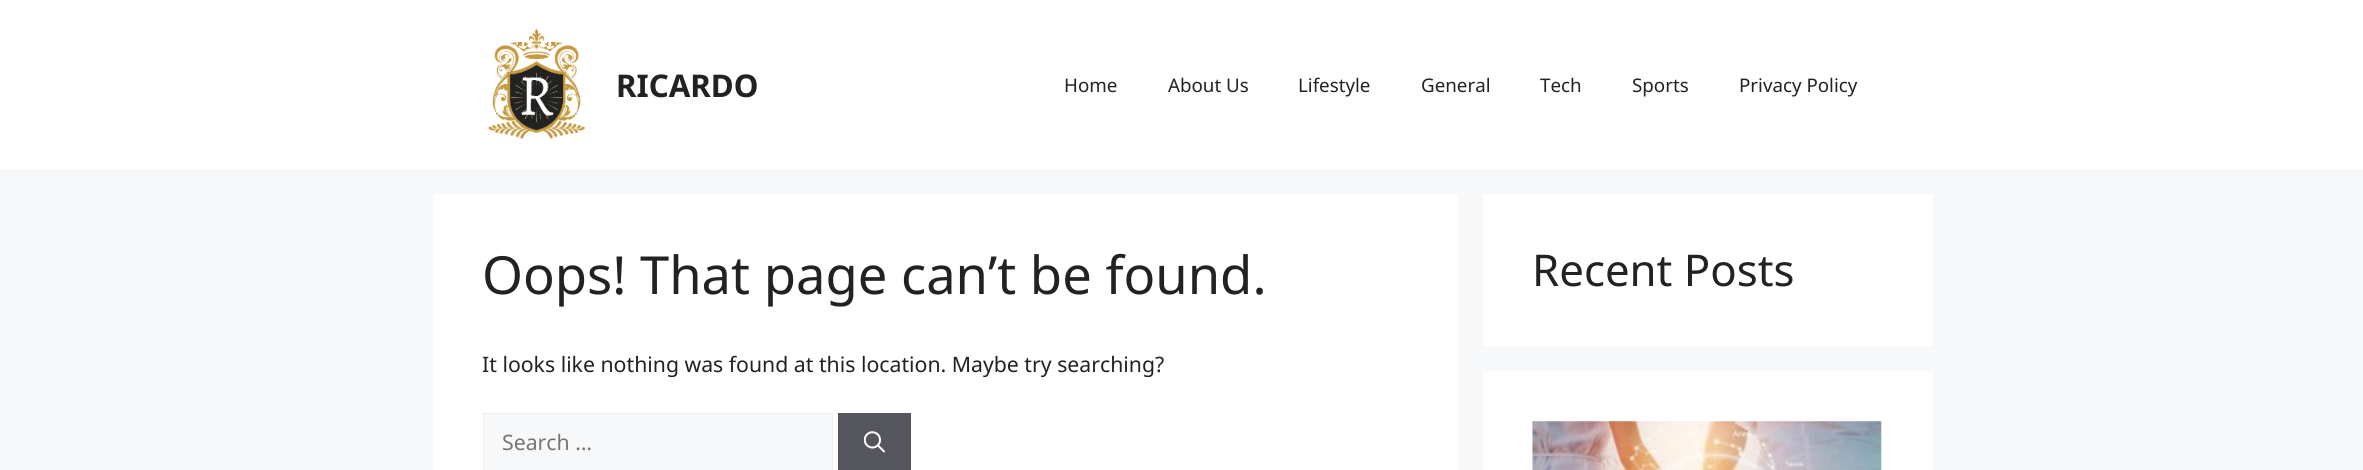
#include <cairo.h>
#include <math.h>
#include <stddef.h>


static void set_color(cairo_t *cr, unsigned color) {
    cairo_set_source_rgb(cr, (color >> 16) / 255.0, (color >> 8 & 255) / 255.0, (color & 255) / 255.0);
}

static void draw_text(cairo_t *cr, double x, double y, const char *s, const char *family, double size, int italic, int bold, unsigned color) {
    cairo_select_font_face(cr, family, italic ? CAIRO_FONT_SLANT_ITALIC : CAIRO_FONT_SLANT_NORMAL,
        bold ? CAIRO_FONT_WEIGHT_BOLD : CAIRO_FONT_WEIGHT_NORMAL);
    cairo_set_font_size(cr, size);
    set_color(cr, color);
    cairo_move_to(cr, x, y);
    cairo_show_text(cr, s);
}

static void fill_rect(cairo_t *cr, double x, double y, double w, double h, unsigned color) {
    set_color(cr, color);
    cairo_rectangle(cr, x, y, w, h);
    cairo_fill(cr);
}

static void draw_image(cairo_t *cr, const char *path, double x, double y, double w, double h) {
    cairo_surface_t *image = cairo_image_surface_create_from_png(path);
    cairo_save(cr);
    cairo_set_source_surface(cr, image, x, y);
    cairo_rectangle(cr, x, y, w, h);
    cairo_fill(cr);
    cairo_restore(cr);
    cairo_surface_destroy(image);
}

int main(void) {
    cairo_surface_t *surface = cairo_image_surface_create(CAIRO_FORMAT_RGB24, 2363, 470);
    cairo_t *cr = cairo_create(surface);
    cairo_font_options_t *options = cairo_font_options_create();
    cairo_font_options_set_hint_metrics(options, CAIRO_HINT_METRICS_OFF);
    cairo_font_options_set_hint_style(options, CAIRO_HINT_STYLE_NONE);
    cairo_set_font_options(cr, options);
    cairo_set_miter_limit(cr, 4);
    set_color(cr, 0xF7F8F9);
    cairo_paint(cr);
    fill_rect(cr, 0, 0, 2363, 169, 0xFFFFFF);
    draw_image(cr, "assets/img1.png", 488, 28, 98, 111);
    draw_text(cr, 616, 97, "RICARDO", "Noto Sans", 31.25, 0, 1, 0x222222);
    draw_text(cr, 1064, 92, "Home", "Noto Sans", 18.75, 0, 0, 0x222222);
    draw_text(cr, 1168, 92, "About Us", "Noto Sans", 18.75, 0, 0, 0x222222);
    draw_text(cr, 1298, 92, "Lifestyle", "Noto Sans", 18.75, 0, 0, 0x222222);
    draw_text(cr, 1421, 92, "General", "Noto Sans", 18.75, 0, 0, 0x222222);
    draw_text(cr, 1540, 92, "Tech", "Noto Sans", 18.75, 0, 0, 0x222222);
    draw_text(cr, 1632, 92, "Sports", "Noto Sans", 18.75, 0, 0, 0x222222);
    draw_text(cr, 1739, 92, "Privacy Policy", "Noto Sans", 18.75, 0, 0, 0x222222);
    fill_rect(cr, 433, 194, 1025, 276, 0xFFFFFF);
    draw_text(cr, 482, 294, "Oops! That page can’t be found.", "Noto Sans", 52.5, 0, 0, 0x222222);
    draw_text(cr, 482, 372, "It looks like nothing was found at this location. Maybe try searching?", "Noto Sans", 21.25, 0, 0, 0x222222);
    set_color(cr, 0xF7F8F9);
    cairo_rectangle(cr, 483.5, 413.5, 349, 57);
    cairo_fill_preserve(cr);
    set_color(cr, 0xF0F0F0);
    cairo_set_line_width(cr, 1);
    cairo_stroke(cr);
    draw_text(cr, 502, 450, "Search …", "Noto Sans", 21.25, 0, 0, 0x757575);
    fill_rect(cr, 838, 413, 73, 57, 0x55555E);
    draw_image(cr, "assets/img2.png", 864, 431, 21, 22);
    fill_rect(cr, 1483, 194, 450, 152, 0xFFFFFF);
    draw_text(cr, 1532, 286, "Recent Posts", "Noto Sans", 43.75, 0, 0, 0x222222);
    fill_rect(cr, 1483, 371, 450, 99, 0xFFFFFF);
    draw_image(cr, "assets/img3.png", 1532, 421, 350, 49);
    cairo_surface_write_to_png(surface, "output.png");
    cairo_font_options_destroy(options);
    cairo_destroy(cr);
    cairo_surface_destroy(surface);
    return 0;
}
